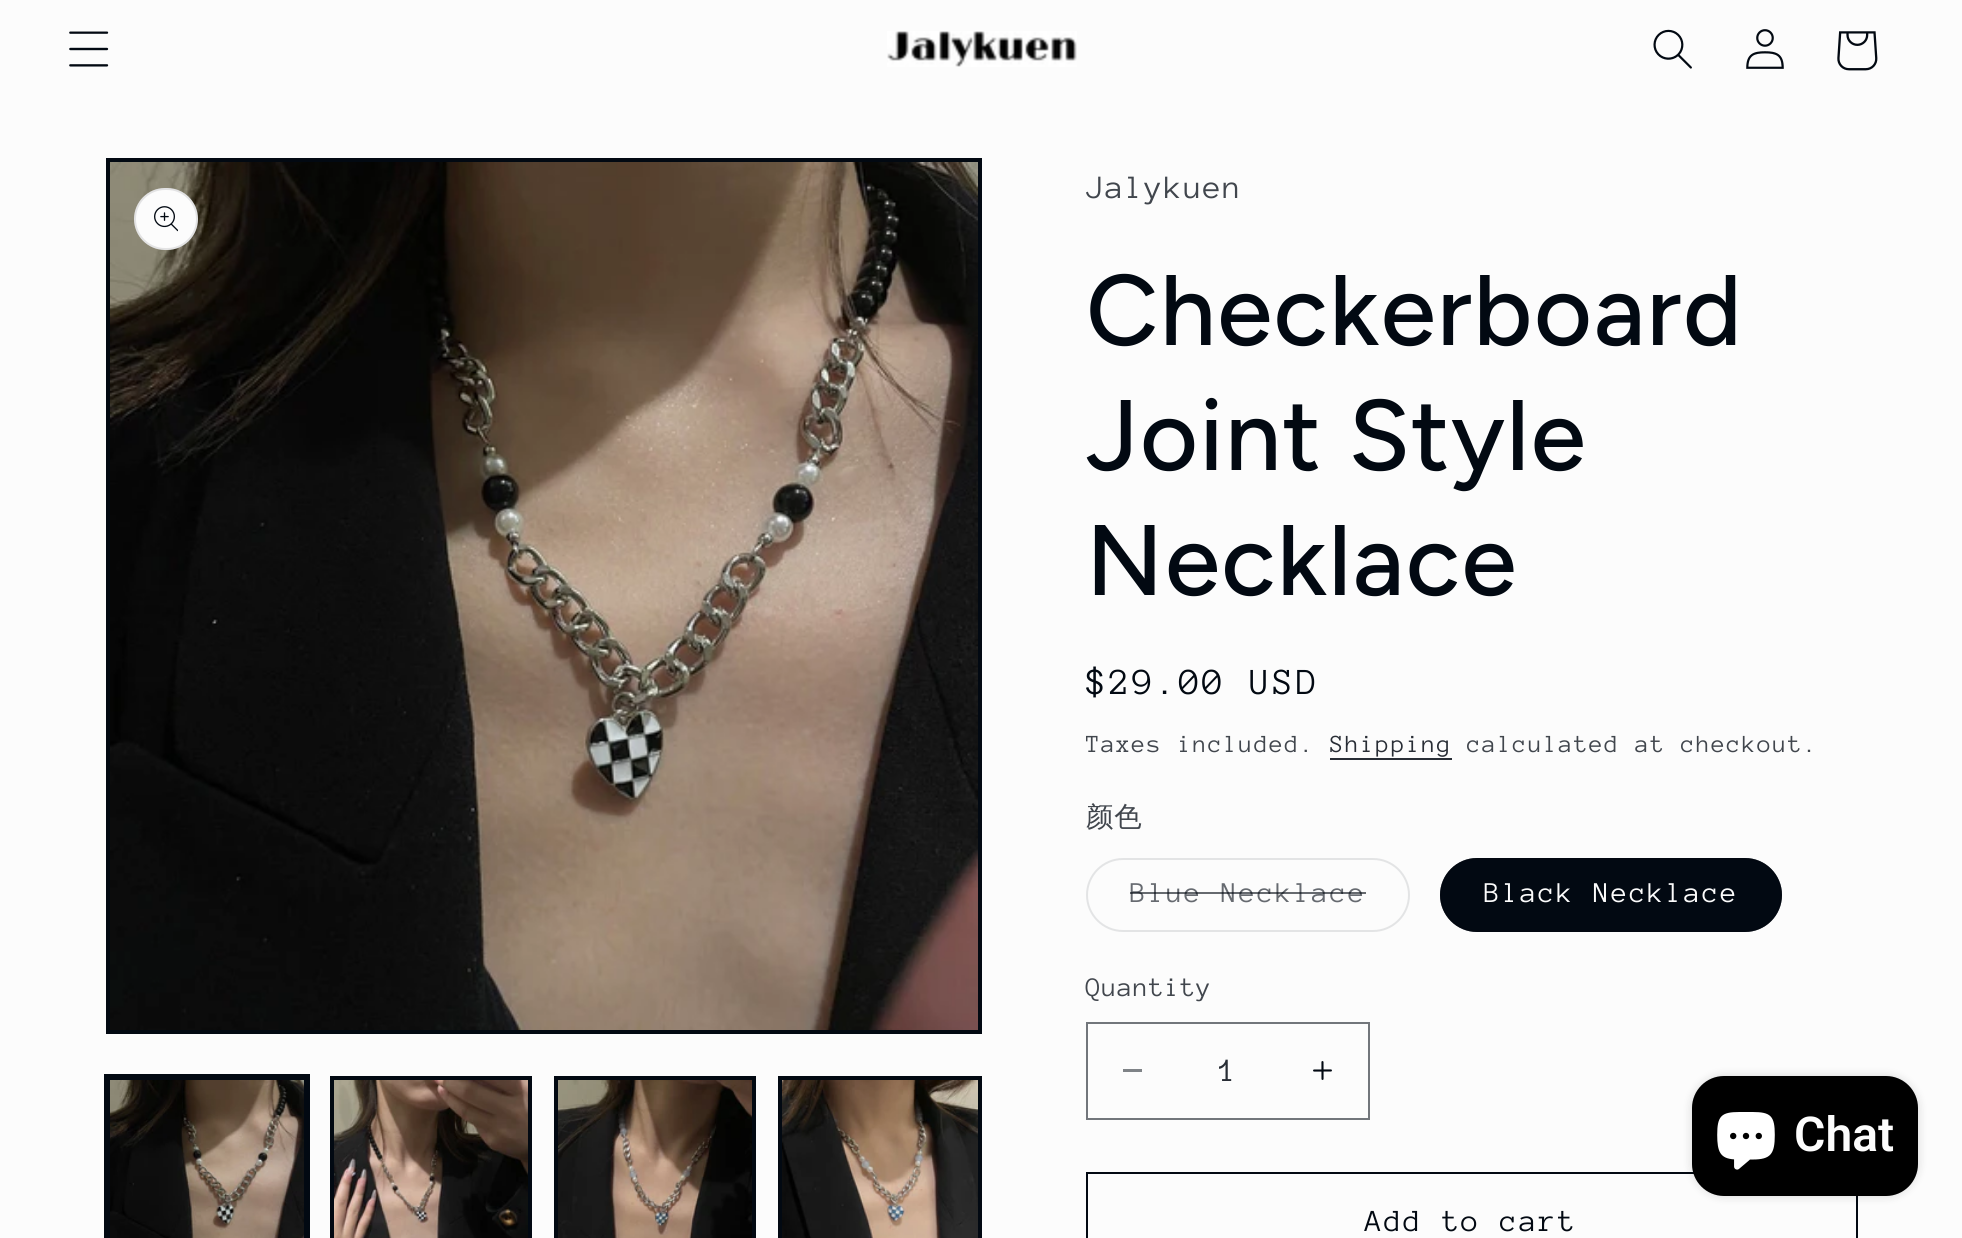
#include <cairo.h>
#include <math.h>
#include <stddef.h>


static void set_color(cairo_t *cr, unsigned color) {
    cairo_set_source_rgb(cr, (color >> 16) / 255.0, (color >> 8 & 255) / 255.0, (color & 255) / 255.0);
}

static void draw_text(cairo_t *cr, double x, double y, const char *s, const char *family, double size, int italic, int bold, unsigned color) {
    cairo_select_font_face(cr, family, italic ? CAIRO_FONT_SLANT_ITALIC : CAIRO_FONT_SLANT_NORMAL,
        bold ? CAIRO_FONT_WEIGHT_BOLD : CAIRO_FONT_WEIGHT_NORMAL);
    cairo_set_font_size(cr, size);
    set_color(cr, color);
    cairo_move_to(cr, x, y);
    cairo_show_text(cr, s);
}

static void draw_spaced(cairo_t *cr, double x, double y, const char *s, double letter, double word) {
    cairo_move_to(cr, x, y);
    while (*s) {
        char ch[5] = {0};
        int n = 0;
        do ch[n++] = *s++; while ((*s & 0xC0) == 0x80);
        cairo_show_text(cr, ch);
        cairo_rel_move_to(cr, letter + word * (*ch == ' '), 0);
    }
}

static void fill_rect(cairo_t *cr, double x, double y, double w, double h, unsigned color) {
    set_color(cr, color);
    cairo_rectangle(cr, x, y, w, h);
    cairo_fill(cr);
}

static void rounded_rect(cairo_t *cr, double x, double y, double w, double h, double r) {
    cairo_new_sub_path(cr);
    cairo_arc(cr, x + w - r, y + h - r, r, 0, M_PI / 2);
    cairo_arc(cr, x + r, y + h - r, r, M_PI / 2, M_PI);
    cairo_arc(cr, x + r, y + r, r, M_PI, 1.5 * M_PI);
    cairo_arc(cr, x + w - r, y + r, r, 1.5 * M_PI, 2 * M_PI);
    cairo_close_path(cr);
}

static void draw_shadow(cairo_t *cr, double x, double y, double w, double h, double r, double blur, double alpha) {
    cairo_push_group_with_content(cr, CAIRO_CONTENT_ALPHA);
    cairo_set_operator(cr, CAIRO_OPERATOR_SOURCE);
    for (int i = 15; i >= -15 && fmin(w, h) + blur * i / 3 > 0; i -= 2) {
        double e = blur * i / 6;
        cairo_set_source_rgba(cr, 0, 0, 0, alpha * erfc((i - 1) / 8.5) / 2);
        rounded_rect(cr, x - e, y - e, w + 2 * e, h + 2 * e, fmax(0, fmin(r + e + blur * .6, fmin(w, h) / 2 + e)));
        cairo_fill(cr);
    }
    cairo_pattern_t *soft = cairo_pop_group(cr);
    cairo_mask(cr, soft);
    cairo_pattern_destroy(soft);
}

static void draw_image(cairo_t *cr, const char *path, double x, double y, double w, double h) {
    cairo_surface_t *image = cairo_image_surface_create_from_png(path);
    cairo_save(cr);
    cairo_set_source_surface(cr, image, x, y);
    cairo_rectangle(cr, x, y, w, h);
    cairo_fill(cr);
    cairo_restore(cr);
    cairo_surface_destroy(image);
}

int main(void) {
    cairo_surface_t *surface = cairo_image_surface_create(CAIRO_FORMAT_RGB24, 1962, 1238);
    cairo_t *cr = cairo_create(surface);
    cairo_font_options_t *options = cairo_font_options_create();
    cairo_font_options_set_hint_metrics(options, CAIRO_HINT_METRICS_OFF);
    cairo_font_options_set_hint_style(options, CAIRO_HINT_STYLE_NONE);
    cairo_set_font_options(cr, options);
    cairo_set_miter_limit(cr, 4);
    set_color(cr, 0xFCFCFC);
    cairo_paint(cr);
    draw_image(cr, "assets/img1.png", 69, 31, 40, 36);
    draw_image(cr, "assets/img2.png", 887, 31, 190, 36);
    draw_image(cr, "assets/img3.png", 1653, 29, 39, 40);
    draw_image(cr, "assets/img4.png", 1746, 29, 38, 40);
    draw_image(cr, "assets/img5.png", 1837, 31, 41, 40);
    cairo_rectangle(cr, 108, 160, 872, 872);
    set_color(cr, 0x020912);
    cairo_set_line_width(cr, 4);
    cairo_stroke(cr);
    draw_image(cr, "assets/img6.png", 110, 162, 868, 868);
    set_color(cr, 0xFCFCFC);
    rounded_rect(cr, 134, 188, 64, 62, 31);
    cairo_fill(cr);
    rounded_rect(cr, 135, 189, 62, 60, 30);
    cairo_set_source_rgba(cr, 0.008, 0.035, 0.071, 0.1);
    cairo_set_line_width(cr, 2);
    cairo_stroke(cr);
    draw_image(cr, "assets/img7.png", 154, 206, 24, 26);
    cairo_rectangle(cr, 105, 1075, 204, 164);
    set_color(cr, 0x020912);
    cairo_stroke(cr);
    cairo_rectangle(cr, 108, 1078, 198, 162);
    cairo_set_line_width(cr, 4);
    cairo_stroke(cr);
    draw_image(cr, "assets/img8.png", 110, 1080, 194, 158);
    cairo_rectangle(cr, 332, 1078, 198, 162);
    cairo_stroke(cr);
    draw_image(cr, "assets/img9.png", 334, 1080, 194, 158);
    cairo_rectangle(cr, 556, 1078, 198, 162);
    cairo_stroke(cr);
    draw_image(cr, "assets/img10.png", 558, 1080, 194, 158);
    cairo_rectangle(cr, 780, 1078, 200, 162);
    cairo_stroke(cr);
    draw_image(cr, "assets/img11.png", 782, 1080, 196, 158);
    cairo_select_font_face(cr, "Anonymous Pro", CAIRO_FONT_SLANT_NORMAL, CAIRO_FONT_WEIGHT_NORMAL);
    cairo_set_font_size(cr, 33.5);
    set_color(cr, 0x41464D);
    draw_spaced(cr, 1086, 198, "Jalykuen", 1.25, 0);
    cairo_select_font_face(cr, "Figtree Medium", CAIRO_FONT_SLANT_NORMAL, CAIRO_FONT_WEIGHT_NORMAL);
    cairo_set_font_size(cr, 100);
    set_color(cr, 0x020912);
    draw_spaced(cr, 1086, 345, "Checkerboard", 1.5, 0);
    draw_spaced(cr, 1086, 470, "Joint Style", 1.5, 0);
    draw_spaced(cr, 1086, 595, "Necklace", 1.5, 0);
    cairo_select_font_face(cr, "Anonymous Pro", CAIRO_FONT_SLANT_NORMAL, CAIRO_FONT_WEIGHT_NORMAL);
    cairo_set_font_size(cr, 37.75);
    draw_spaced(cr, 1086, 694, "$29.00 USD", 2.75, 0);
    cairo_set_font_size(cr, 25.25);
    set_color(cr, 0x41464D);
    draw_spaced(cr, 1086, 752, "Taxes included.", 1.5, 0);
    set_color(cr, 0x282D35);
    draw_spaced(cr, 1330, 752, "Shipping", 1.5, 0);
    fill_rect(cr, 1330, 758, 122, 2, 0x282D35);
    set_color(cr, 0x41464D);
    draw_spaced(cr, 1467, 752, "calculated at checkout.", 1.5, 0);
    cairo_select_font_face(cr, "WenQuanYi Zen Hei Medium", CAIRO_FONT_SLANT_NORMAL, CAIRO_FONT_WEIGHT_NORMAL);
    cairo_set_font_size(cr, 27.5);
    draw_spaced(cr, 1086, 826, "颜色", 0.75, 0);
    rounded_rect(cr, 1087, 859, 322, 72, 36);
    set_color(cr, 0xE3E4E5);
    cairo_set_line_width(cr, 2);
    cairo_stroke(cr);
    cairo_select_font_face(cr, "Anonymous Pro", CAIRO_FONT_SLANT_NORMAL, CAIRO_FONT_WEIGHT_NORMAL);
    cairo_set_font_size(cr, 29.5);
    set_color(cr, 0x666A70);
    draw_spaced(cr, 1130, 902, "Blue Necklace", 2.1, 0);
    cairo_set_source_rgba(cr, 0.008, 0.035, 0.071, 0.6);
    cairo_rectangle(cr, 1130, 892, 236, 2);
    cairo_fill(cr);
    set_color(cr, 0x020912);
    rounded_rect(cr, 1440, 858, 342, 74, 37);
    cairo_fill(cr);
    rounded_rect(cr, 1441, 859, 340, 72, 36);
    cairo_set_source_rgba(cr, 0.008, 0.035, 0.071, 0.55);
    cairo_stroke(cr);
    set_color(cr, 0xFCFCFC);
    draw_spaced(cr, 1484, 902, "Black Necklace", 2.1, 0);
    cairo_set_font_size(cr, 27.5);
    set_color(cr, 0x41464D);
    draw_spaced(cr, 1086, 996, "Quantity", 0.75, 0);
    fill_rect(cr, 1123, 1069, 19, 3, 0x7F8387);
    draw_image(cr, "assets/img12.png", 1313, 1061, 19, 19);
    cairo_rectangle(cr, 1087, 1023, 282, 96);
    set_color(cr, 0x72767B);
    cairo_stroke(cr);
    draw_text(cr, 1219, 1081, "1", "Anonymous Pro", 33.5, 0, 0, 0x282D35);
    cairo_rectangle(cr, 1087, 1173, 770, 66);
    set_color(cr, 0x020912);
    cairo_stroke(cr);
    cairo_set_font_size(cr, 31.5);
    draw_spaced(cr, 1365, 1231, "Add to cart", 2.1, 0);
    set_color(cr, 0x000000);
    draw_shadow(cr, 1692, 1076, 226, 120, 32, 5, 0.15);
    set_color(cr, 0x000000);
    rounded_rect(cr, 1692, 1076, 226, 120, 32);
    cairo_fill(cr);
    draw_image(cr, "assets/img13.png", 1717, 1112, 58, 58);
    draw_text(cr, 1794, 1151, "Chat", "Roboto SemiBold", 48, 0, 0, 0xFCFCFC);
    cairo_surface_write_to_png(surface, "output.png");
    cairo_font_options_destroy(options);
    cairo_destroy(cr);
    cairo_surface_destroy(surface);
    return 0;
}
